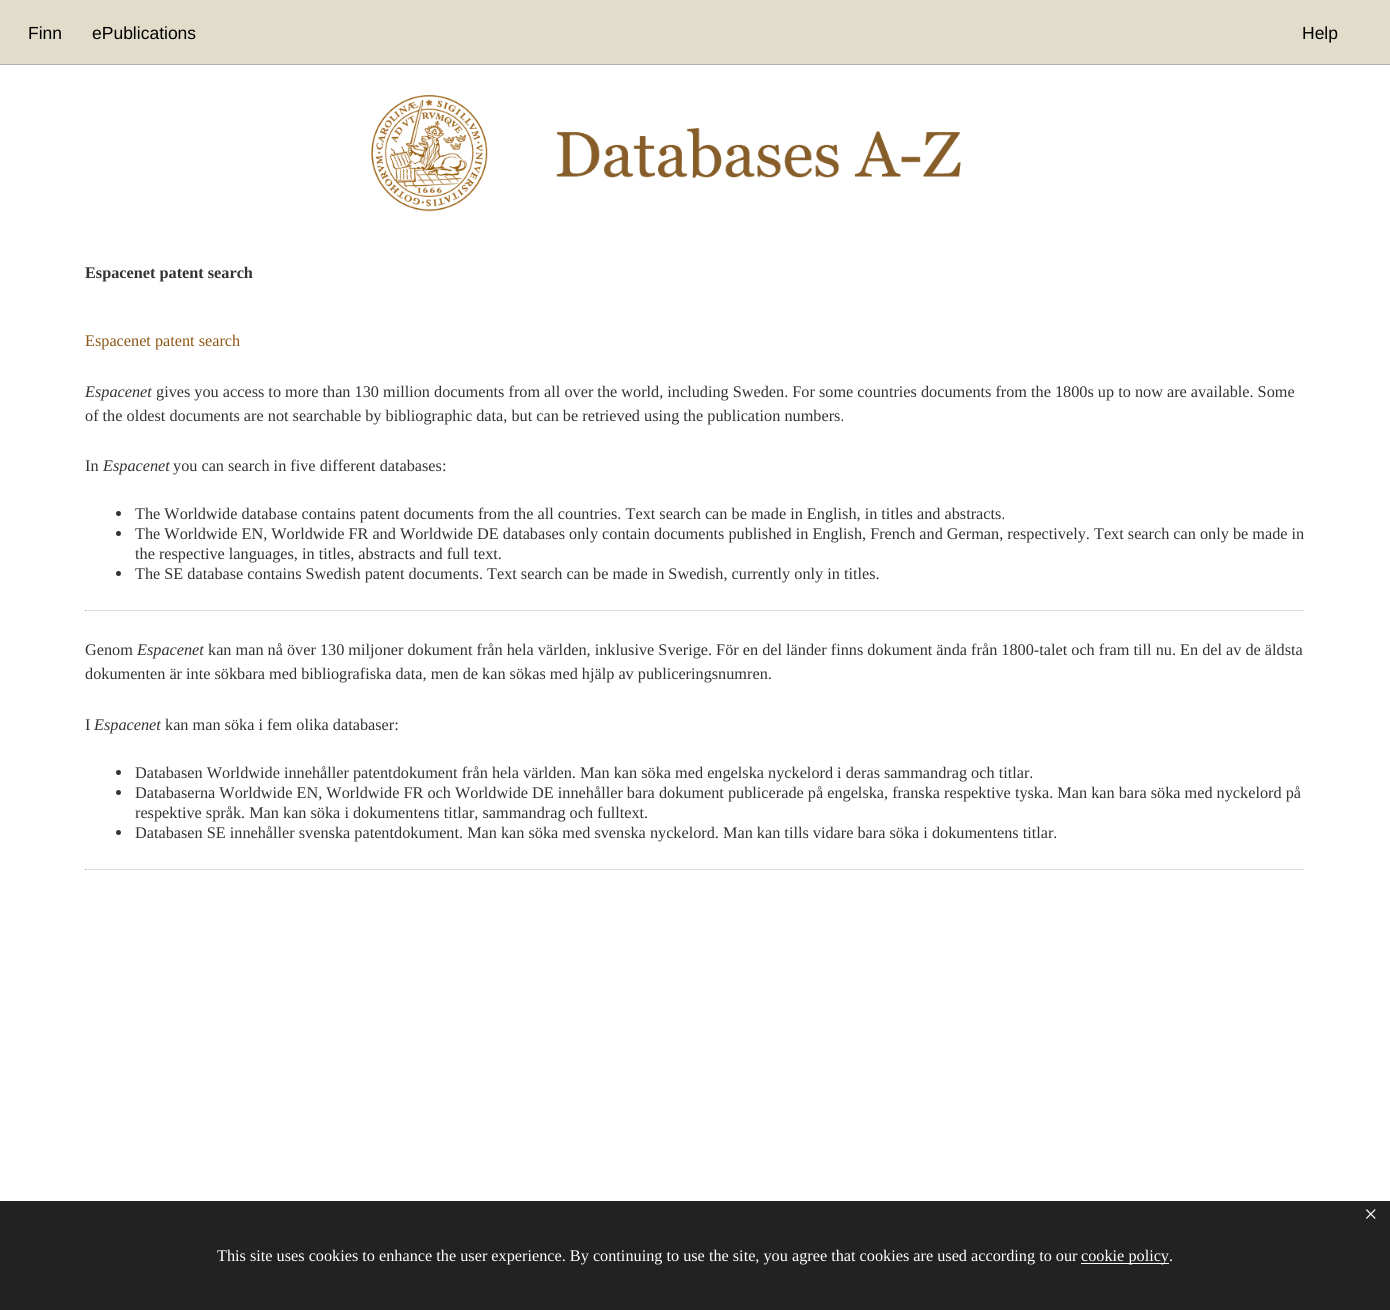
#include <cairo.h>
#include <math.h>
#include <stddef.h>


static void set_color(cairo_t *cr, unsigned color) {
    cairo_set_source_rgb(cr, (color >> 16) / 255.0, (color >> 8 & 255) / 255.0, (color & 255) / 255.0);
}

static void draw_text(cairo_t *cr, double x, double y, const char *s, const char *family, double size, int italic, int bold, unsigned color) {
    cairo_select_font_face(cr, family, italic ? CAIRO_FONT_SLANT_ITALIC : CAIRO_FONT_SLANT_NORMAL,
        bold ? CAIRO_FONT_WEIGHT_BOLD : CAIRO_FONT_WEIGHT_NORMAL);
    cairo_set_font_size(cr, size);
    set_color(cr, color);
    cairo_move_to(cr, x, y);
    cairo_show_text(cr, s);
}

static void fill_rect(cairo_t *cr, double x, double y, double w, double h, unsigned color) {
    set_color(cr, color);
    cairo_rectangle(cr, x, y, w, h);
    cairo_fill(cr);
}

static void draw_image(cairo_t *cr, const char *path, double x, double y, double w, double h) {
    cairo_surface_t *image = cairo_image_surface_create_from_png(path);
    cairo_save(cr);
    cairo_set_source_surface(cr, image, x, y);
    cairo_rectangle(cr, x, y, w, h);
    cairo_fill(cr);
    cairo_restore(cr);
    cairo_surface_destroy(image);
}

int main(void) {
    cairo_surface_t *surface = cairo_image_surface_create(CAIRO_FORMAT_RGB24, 1390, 1310);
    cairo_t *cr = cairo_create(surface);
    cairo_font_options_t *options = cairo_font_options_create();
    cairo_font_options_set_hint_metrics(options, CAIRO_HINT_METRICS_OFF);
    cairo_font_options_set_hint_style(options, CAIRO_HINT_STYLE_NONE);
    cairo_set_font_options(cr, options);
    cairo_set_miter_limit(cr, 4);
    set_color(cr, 0xFFFFFF);
    cairo_paint(cr);
    fill_rect(cr, 0, 0, 1390, 64, 0xE2DDCB);
    fill_rect(cr, 0, 64, 1390, 1, 0xB3B3B3);
    draw_text(cr, 28, 39, "Finn", "Liberation Sans", 17.5, 0, 0, 0x000000);
    draw_text(cr, 92, 39, "ePublications", "Liberation Sans", 17.5, 0, 0, 0x000000);
    draw_text(cr, 1302, 39, "Help", "Liberation Sans", 17.5, 0, 0, 0x000000);
    draw_image(cr, "assets/img1.png", 371, 95, 590, 117);
    draw_text(cr, 85, 278, "Espacenet patent search", "Liberation Serif", 16.25, 0, 1, 0x333333);
    draw_text(cr, 85, 346, "Espacenet patent search", "Liberation Serif", 16.25, 0, 0, 0x8E5614);
    draw_text(cr, 85, 397, "Espacenet", "Liberation Serif", 16.25, 1, 0, 0x333333);
    draw_text(cr, 156, 397, "gives you access to more than 130 million documents from all over the world, including Sweden. For some countries documents from the 1800s up to now are available. Some", "Liberation Serif", 16.25, 0, 0, 0x333333);
    draw_text(cr, 85, 421, "of the oldest documents are not searchable by bibliographic data, but can be retrieved using the publication numbers.", "Liberation Serif", 16.25, 0, 0, 0x333333);
    draw_text(cr, 85, 471, "In", "Liberation Serif", 16.25, 0, 0, 0x333333);
    draw_text(cr, 103, 471, "Espacenet", "Liberation Serif", 16.25, 1, 0, 0x333333);
    draw_text(cr, 173, 471, "you can search in five different databases:", "Liberation Serif", 16.25, 0, 0, 0x333333);
    cairo_new_path(cr);
    cairo_arc(cr, 118.5, 513.5, 2.5, 0, 2 * M_PI);
    cairo_fill(cr);
    draw_text(cr, 135, 519, "The Worldwide database contains patent documents from the all countries. Text search can be made in English, in titles and abstracts.", "Liberation Serif", 16.25, 0, 0, 0x333333);
    cairo_new_path(cr);
    cairo_arc(cr, 118.5, 533.5, 2.5, 0, 2 * M_PI);
    cairo_fill(cr);
    draw_text(cr, 135, 539, "The Worldwide EN, Worldwide FR and Worldwide DE databases only contain documents published in English, French and German, respectively. Text search can only be made in", "Liberation Serif", 16.25, 0, 0, 0x333333);
    draw_text(cr, 135, 559, "the respective languages, in titles, abstracts and full text.", "Liberation Serif", 16.25, 0, 0, 0x333333);
    cairo_new_path(cr);
    cairo_arc(cr, 118.5, 573.5, 2.5, 0, 2 * M_PI);
    cairo_fill(cr);
    draw_text(cr, 135, 579, "The SE database contains Swedish patent documents. Text search can be made in Swedish, currently only in titles.", "Liberation Serif", 16.25, 0, 0, 0x333333);
    fill_rect(cr, 85, 610, 1220, 1, 0xDDDDDD);
    fill_rect(cr, 1304, 610, 1, 1, 0xEEEEEE);
    fill_rect(cr, 85, 610, 1, 1, 0x9F9F9F);
    draw_text(cr, 85, 655, "Genom", "Liberation Serif", 16.25, 0, 0, 0x333333);
    draw_text(cr, 137, 655, "Espacenet", "Liberation Serif", 16.25, 1, 0, 0x333333);
    draw_text(cr, 208, 655, "kan man nå över 130 miljoner dokument från hela världen, inklusive Sverige. För en del länder finns dokument ända från 1800-talet och fram till nu. En del av de äldsta", "Liberation Serif", 16.25, 0, 0, 0x333333);
    draw_text(cr, 85, 679, "dokumenten är inte sökbara med bibliografiska data, men de kan sökas med hjälp av publiceringsnumren.", "Liberation Serif", 16.25, 0, 0, 0x333333);
    draw_text(cr, 85, 730, "I", "Liberation Serif", 16.25, 0, 0, 0x333333);
    draw_text(cr, 94, 730, "Espacenet", "Liberation Serif", 16.25, 1, 0, 0x333333);
    draw_text(cr, 165, 730, "kan man söka i fem olika databaser:", "Liberation Serif", 16.25, 0, 0, 0x333333);
    cairo_new_path(cr);
    cairo_arc(cr, 118.5, 772.5, 2.5, 0, 2 * M_PI);
    cairo_fill(cr);
    draw_text(cr, 135, 778, "Databasen Worldwide innehåller patentdokument från hela världen. Man kan söka med engelska nyckelord i deras sammandrag och titlar.", "Liberation Serif", 16.25, 0, 0, 0x333333);
    cairo_new_path(cr);
    cairo_arc(cr, 118.5, 792.5, 2.5, 0, 2 * M_PI);
    cairo_fill(cr);
    draw_text(cr, 135, 798, "Databaserna Worldwide EN, Worldwide FR och Worldwide DE innehåller bara dokument publicerade på engelska, franska respektive tyska. Man kan bara söka med nyckelord på", "Liberation Serif", 16.25, 0, 0, 0x333333);
    draw_text(cr, 135, 818, "respektive språk. Man kan söka i dokumentens titlar, sammandrag och fulltext.", "Liberation Serif", 16.25, 0, 0, 0x333333);
    cairo_new_path(cr);
    cairo_arc(cr, 118.5, 832.5, 2.5, 0, 2 * M_PI);
    cairo_fill(cr);
    draw_text(cr, 135, 838, "Databasen SE innehåller svenska patentdokument. Man kan söka med svenska nyckelord. Man kan tills vidare bara söka i dokumentens titlar.", "Liberation Serif", 16.25, 0, 0, 0x333333);
    fill_rect(cr, 85, 869, 1220, 1, 0xDDDDDD);
    fill_rect(cr, 1304, 869, 1, 1, 0xEEEEEE);
    fill_rect(cr, 85, 869, 1, 1, 0x9F9F9F);
    fill_rect(cr, 0, 1201, 1390, 109, 0x222222);
    draw_text(cr, 1364, 1222, "×", "Liberation Serif", 24, 0, 0, 0xFFFFFF);
    draw_text(cr, 217, 1261, "This site uses cookies to enhance the user experience. By continuing to use the site, you agree that cookies are used according to our", "Liberation Serif", 16.25, 0, 0, 0xFFFFFF);
    fill_rect(cr, 1081, 1263, 88, 1, 0xFFFFFF);
    draw_text(cr, 1081, 1261, "cookie policy.", "Liberation Serif", 16.25, 0, 0, 0xFFFFFF);
    cairo_surface_write_to_png(surface, "output.png");
    cairo_font_options_destroy(options);
    cairo_destroy(cr);
    cairo_surface_destroy(surface);
    return 0;
}
